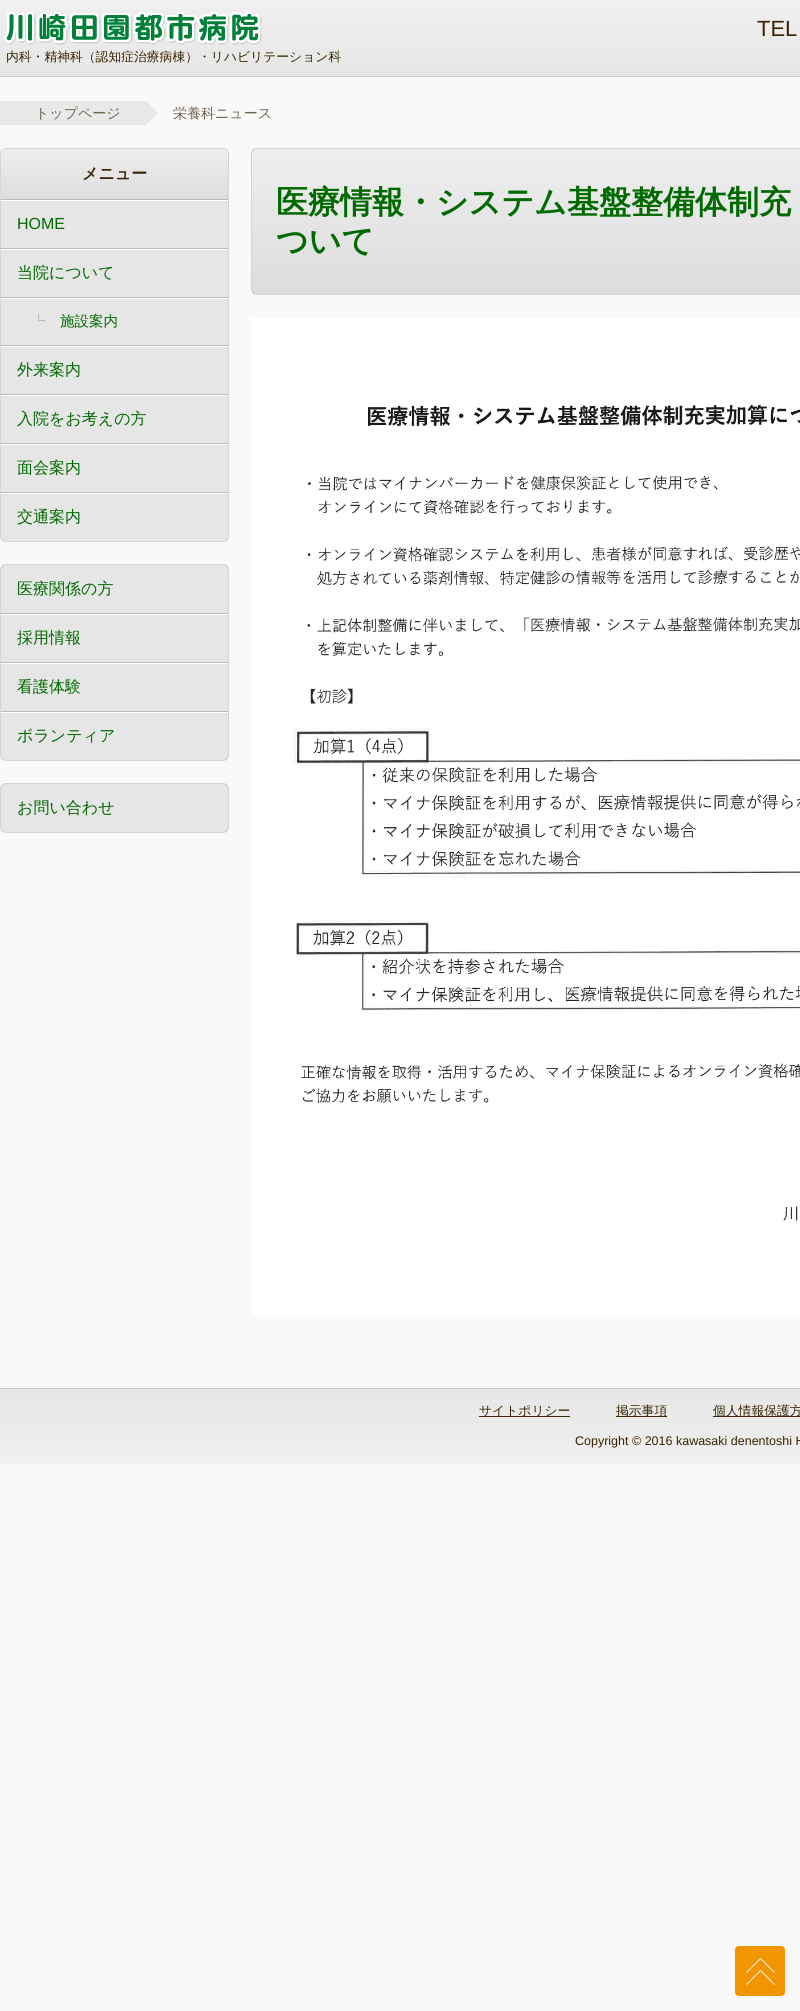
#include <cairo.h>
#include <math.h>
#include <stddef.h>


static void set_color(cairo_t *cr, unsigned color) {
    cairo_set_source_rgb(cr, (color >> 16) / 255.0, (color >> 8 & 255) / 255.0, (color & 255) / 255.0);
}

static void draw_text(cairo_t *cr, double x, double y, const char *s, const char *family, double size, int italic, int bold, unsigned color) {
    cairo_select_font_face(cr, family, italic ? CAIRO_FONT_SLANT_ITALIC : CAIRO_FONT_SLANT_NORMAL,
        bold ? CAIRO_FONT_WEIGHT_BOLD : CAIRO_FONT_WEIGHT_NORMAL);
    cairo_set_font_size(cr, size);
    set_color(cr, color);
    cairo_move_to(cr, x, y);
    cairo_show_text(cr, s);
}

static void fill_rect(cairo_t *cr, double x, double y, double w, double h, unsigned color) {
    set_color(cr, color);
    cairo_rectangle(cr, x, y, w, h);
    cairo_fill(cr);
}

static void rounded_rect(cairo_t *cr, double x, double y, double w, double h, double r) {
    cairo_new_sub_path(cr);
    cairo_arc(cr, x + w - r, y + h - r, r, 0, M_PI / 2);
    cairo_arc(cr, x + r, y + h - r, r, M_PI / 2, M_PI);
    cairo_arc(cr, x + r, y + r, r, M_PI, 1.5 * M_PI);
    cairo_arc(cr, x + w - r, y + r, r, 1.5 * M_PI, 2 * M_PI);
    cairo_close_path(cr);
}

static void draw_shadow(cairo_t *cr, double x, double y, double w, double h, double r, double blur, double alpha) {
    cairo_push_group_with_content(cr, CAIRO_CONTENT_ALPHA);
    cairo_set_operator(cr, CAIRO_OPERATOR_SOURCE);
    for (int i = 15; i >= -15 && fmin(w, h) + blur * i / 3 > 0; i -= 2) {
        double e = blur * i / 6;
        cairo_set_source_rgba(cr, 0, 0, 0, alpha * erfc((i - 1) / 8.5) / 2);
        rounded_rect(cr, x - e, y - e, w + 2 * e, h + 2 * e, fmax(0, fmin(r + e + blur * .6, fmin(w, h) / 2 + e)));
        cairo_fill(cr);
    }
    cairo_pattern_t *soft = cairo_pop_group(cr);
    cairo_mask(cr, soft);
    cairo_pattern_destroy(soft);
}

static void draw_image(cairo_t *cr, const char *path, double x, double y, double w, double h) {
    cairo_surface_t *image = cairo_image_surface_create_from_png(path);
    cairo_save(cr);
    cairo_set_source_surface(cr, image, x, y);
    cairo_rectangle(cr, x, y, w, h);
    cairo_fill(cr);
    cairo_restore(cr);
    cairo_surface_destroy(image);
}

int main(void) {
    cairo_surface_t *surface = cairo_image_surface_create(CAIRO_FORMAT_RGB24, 800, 2011);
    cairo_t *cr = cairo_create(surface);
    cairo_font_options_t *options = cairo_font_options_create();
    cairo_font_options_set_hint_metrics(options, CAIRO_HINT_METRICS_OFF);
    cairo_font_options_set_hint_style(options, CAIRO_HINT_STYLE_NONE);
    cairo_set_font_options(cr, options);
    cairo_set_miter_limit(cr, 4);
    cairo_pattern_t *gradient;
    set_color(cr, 0xF9F9F9);
    cairo_paint(cr);
    gradient = cairo_pattern_create_linear(480, 0, 480, 76);
    cairo_pattern_add_color_stop_rgba(gradient, 0, 0.941, 0.941, 0.941, 1);
    cairo_pattern_add_color_stop_rgba(gradient, 1, 0.902, 0.902, 0.902, 1);
    cairo_set_source(cr, gradient);
    cairo_pattern_destroy(gradient);
    cairo_rectangle(cr, 0, 0, 800, 76);
    cairo_fill(cr);
    fill_rect(cr, 0, 76, 800, 1, 0xCCCCCC);
    draw_image(cr, "assets/img1.png", 4, 12, 259, 33);
    draw_text(cr, 757, 36, "TEL", "Liberation Sans", 22, 0, 0, 0x382400);
    draw_text(cr, 6, 61, "内科・精神科（認知症治療病棟）・リハビリテーション科", "WenQuanYi Zen Hei Medium", 12.8, 0, 0, 0x382400);
    fill_rect(cr, 0, 101, 146, 24, 0xE9E9E9);
    draw_text(cr, 35, 118, "トップページ", "WenQuanYi Zen Hei Medium", 14, 0, 0, 0x71644F);
    set_color(cr, 0xE9E9E9);
    cairo_new_path(cr);
    cairo_move_to(cr, 146, 125);
    cairo_line_to(cr, 146, 101);
    cairo_line_to(cr, 158, 113);
    cairo_close_path(cr);
    cairo_fill(cr);
    draw_text(cr, 173, 118, "栄養科ニュース", "WenQuanYi Zen Hei Medium", 14, 0, 0, 0x71644F);
    set_color(cr, 0x000000);
    draw_shadow(cr, 1, 149, 227, 392, 4, 0.5, 0.6);
    set_color(cr, 0xE6E6E6);
    rounded_rect(cr, 1, 149, 227, 392, 4);
    cairo_fill(cr);
    fill_rect(cr, 1, 200, 227, 1, 0xFFFFFF);
    gradient = cairo_pattern_create_linear(115, 149, 115, 199);
    cairo_pattern_add_color_stop_rgba(gradient, 0, 0.933, 0.933, 0.933, 1);
    cairo_pattern_add_color_stop_rgba(gradient, 1, 0.867, 0.867, 0.867, 1);
    cairo_set_source(cr, gradient);
    cairo_pattern_destroy(gradient);
    cairo_new_path(cr);
    cairo_move_to(cr, 5, 149);
    cairo_line_to(cr, 224, 149);
    cairo_curve_to(cr, 226, 149, 228, 151, 228, 153);
    cairo_line_to(cr, 228, 199);
    cairo_line_to(cr, 1, 199);
    cairo_line_to(cr, 1, 153);
    cairo_curve_to(cr, 1, 151, 3, 149, 5, 149);
    cairo_close_path(cr);
    cairo_fill(cr);
    fill_rect(cr, 1, 199, 227, 1, 0xBBBBBB);
    draw_text(cr, 82, 179, "メニュー", "WenQuanYi Zen Hei", 16, 0, 1, 0x382400);
    fill_rect(cr, 1, 249, 227, 1, 0xFFFFFF);
    fill_rect(cr, 1, 248, 227, 1, 0xBBBBBB);
    draw_text(cr, 17, 229, "HOME", "Liberation Sans", 16, 0, 0, 0x006A00);
    fill_rect(cr, 1, 298, 227, 1, 0xFFFFFF);
    fill_rect(cr, 1, 297, 227, 1, 0xBBBBBB);
    draw_text(cr, 17, 278, "当院について", "WenQuanYi Zen Hei Medium", 16, 0, 0, 0x006A00);
    fill_rect(cr, 1, 346, 227, 1, 0xFFFFFF);
    fill_rect(cr, 1, 345, 227, 1, 0xBBBBBB);
    draw_text(cr, 31, 326, "┗", "WenQuanYi Zen Hei Medium", 14.5, 0, 0, 0xBBBBBB);
    draw_text(cr, 60, 326, "施設案内", "WenQuanYi Zen Hei Medium", 14.5, 0, 0, 0x006A00);
    fill_rect(cr, 1, 395, 227, 1, 0xFFFFFF);
    fill_rect(cr, 1, 394, 227, 1, 0xBBBBBB);
    draw_text(cr, 17, 375, "外来案内", "WenQuanYi Zen Hei Medium", 16, 0, 0, 0x006A00);
    fill_rect(cr, 1, 444, 227, 1, 0xFFFFFF);
    fill_rect(cr, 1, 443, 227, 1, 0xBBBBBB);
    draw_text(cr, 17, 424, "入院をお考えの方", "WenQuanYi Zen Hei Medium", 16, 0, 0, 0x006A00);
    fill_rect(cr, 1, 493, 227, 1, 0xFFFFFF);
    fill_rect(cr, 1, 492, 227, 1, 0xBBBBBB);
    draw_text(cr, 17, 473, "面会案内", "WenQuanYi Zen Hei Medium", 16, 0, 0, 0x006A00);
    draw_text(cr, 17, 522, "交通案内", "WenQuanYi Zen Hei Medium", 16, 0, 0, 0x006A00);
    set_color(cr, 0x000000);
    draw_shadow(cr, 1, 565, 227, 195, 4, 0.5, 0.6);
    set_color(cr, 0xE6E6E6);
    rounded_rect(cr, 1, 565, 227, 195, 4);
    cairo_fill(cr);
    fill_rect(cr, 1, 614, 227, 1, 0xFFFFFF);
    fill_rect(cr, 1, 613, 227, 1, 0xBBBBBB);
    draw_text(cr, 17, 594, "医療関係の方", "WenQuanYi Zen Hei Medium", 16, 0, 0, 0x006A00);
    fill_rect(cr, 1, 663, 227, 1, 0xFFFFFF);
    fill_rect(cr, 1, 662, 227, 1, 0xBBBBBB);
    draw_text(cr, 17, 643, "採用情報", "WenQuanYi Zen Hei Medium", 16, 0, 0, 0x006A00);
    fill_rect(cr, 1, 712, 227, 1, 0xFFFFFF);
    fill_rect(cr, 1, 711, 227, 1, 0xBBBBBB);
    draw_text(cr, 17, 692, "看護体験", "WenQuanYi Zen Hei Medium", 16, 0, 0, 0x006A00);
    draw_text(cr, 17, 741, "ボランティア", "WenQuanYi Zen Hei Medium", 16, 0, 0, 0x006A00);
    set_color(cr, 0x000000);
    draw_shadow(cr, 1, 784, 227, 48, 4, 0.5, 0.6);
    set_color(cr, 0xE6E6E6);
    rounded_rect(cr, 1, 784, 227, 48, 4);
    cairo_fill(cr);
    draw_text(cr, 17, 813, "お問い合わせ", "WenQuanYi Zen Hei Medium", 16, 0, 0, 0x006A00);
    set_color(cr, 0x000000);
    draw_shadow(cr, 252, 149, 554, 145, 4, 0.5, 0.6);
    gradient = cairo_pattern_create_linear(605, 149, 605, 294);
    cairo_pattern_add_color_stop_rgba(gradient, 0, 0.933, 0.933, 0.933, 1);
    cairo_pattern_add_color_stop_rgba(gradient, 1, 0.867, 0.867, 0.867, 1);
    cairo_set_source(cr, gradient);
    cairo_pattern_destroy(gradient);
    rounded_rect(cr, 252, 149, 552, 145, 4);
    cairo_fill(cr);
    draw_text(cr, 276, 213, "医療情報・システム基盤整備体制充", "WenQuanYi Zen Hei", 32, 0, 1, 0x006A00);
    draw_text(cr, 276, 252, "ついて", "WenQuanYi Zen Hei", 32, 0, 1, 0x006A00);
    draw_image(cr, "assets/img2.png", 252, 318, 548, 998);
    gradient = cairo_pattern_create_linear(480, 1389, 480, 1464);
    cairo_pattern_add_color_stop_rgba(gradient, 0, 0.902, 0.902, 0.902, 1);
    cairo_pattern_add_color_stop_rgba(gradient, 1, 0.941, 0.941, 0.941, 1);
    cairo_set_source(cr, gradient);
    cairo_pattern_destroy(gradient);
    cairo_rectangle(cr, 0, 1389, 800, 75);
    cairo_fill(cr);
    fill_rect(cr, 0, 1388, 800, 1, 0xCCCCCC);
    fill_rect(cr, 479, 1416, 91, 1, 0x382400);
    draw_text(cr, 479, 1415, "サイトポリシー", "WenQuanYi Zen Hei Medium", 12.8, 0, 0, 0x382400);
    fill_rect(cr, 616, 1416, 51, 1, 0x382400);
    draw_text(cr, 616, 1415, "掲示事項", "WenQuanYi Zen Hei Medium", 12.8, 0, 0, 0x382400);
    fill_rect(cr, 713, 1416, 87, 1, 0x382400);
    draw_text(cr, 713, 1415, "個人情報保護方", "WenQuanYi Zen Hei Medium", 12.8, 0, 0, 0x382400);
    draw_text(cr, 575, 1445, "Copyright © 2016 kawasaki denentoshi H", "Liberation Sans", 12.5, 0, 0, 0x382400);
    set_color(cr, 0xF19500);
    rounded_rect(cr, 735, 1946, 50, 50, 4);
    cairo_fill(cr);
    draw_image(cr, "assets/img3.png", 746, 1958, 29, 27);
    cairo_surface_write_to_png(surface, "output.png");
    cairo_font_options_destroy(options);
    cairo_destroy(cr);
    cairo_surface_destroy(surface);
    return 0;
}
